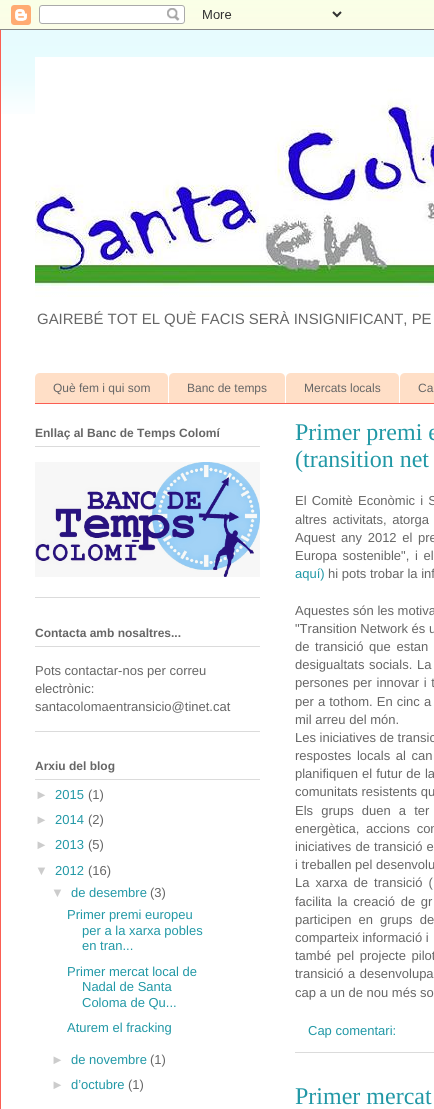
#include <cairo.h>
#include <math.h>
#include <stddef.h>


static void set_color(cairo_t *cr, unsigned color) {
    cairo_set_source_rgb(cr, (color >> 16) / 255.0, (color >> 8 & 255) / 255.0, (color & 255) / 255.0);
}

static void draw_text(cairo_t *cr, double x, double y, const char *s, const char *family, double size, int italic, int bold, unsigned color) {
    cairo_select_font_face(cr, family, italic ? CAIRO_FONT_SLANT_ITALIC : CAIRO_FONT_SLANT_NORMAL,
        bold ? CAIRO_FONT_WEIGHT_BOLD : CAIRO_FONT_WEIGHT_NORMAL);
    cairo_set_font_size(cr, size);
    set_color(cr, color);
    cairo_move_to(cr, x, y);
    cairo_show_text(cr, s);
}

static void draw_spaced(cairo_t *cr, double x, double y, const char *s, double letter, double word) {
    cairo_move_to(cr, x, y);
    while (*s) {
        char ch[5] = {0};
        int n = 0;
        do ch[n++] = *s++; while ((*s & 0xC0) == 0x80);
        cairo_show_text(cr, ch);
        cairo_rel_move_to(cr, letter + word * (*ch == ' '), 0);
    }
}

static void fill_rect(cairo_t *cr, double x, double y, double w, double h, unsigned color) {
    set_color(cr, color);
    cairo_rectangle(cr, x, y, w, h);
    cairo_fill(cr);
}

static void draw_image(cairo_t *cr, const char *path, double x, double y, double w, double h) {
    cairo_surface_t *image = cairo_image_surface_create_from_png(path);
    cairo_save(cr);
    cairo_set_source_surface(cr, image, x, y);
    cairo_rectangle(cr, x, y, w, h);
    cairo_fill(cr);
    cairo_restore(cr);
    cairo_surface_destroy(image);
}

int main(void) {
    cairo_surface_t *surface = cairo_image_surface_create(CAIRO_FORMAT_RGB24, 434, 1109);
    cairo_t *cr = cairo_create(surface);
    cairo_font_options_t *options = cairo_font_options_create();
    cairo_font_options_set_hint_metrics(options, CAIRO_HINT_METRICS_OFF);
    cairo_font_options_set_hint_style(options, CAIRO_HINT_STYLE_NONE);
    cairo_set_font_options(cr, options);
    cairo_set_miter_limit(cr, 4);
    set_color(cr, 0xFFFFFF);
    cairo_paint(cr);
    draw_image(cr, "assets/img1.png", 0, 0, 434, 29);
    draw_image(cr, "assets/img2.png", 0, 0, 434, 30);
    draw_image(cr, "assets/img3.png", 1, 30, 433, 84);
    fill_rect(cr, 0, 30, 1, 1079, 0xFB5E53);
    draw_image(cr, "assets/img4.png", 35, 57, 399, 240);
    draw_text(cr, 37, 324, "GAIREBÉ TOT EL QUÈ FACIS SERÀ INSIGNIFICANT, PE", "Liberation Sans", 14.95, 0, 0, 0x666666);
    fill_rect(cr, 35, 403, 399, 1, 0xFB5E53);
    set_color(cr, 0xFFDFC7);
    cairo_new_path(cr);
    cairo_move_to(cr, 40, 373);
    cairo_line_to(cr, 163, 373);
    cairo_curve_to(cr, 166, 373, 168, 375, 168, 378);
    cairo_line_to(cr, 168, 403);
    cairo_line_to(cr, 35, 403);
    cairo_line_to(cr, 35, 378);
    cairo_curve_to(cr, 35, 375, 37, 373, 40, 373);
    cairo_close_path(cr);
    cairo_fill(cr);
    draw_text(cr, 53, 392, "Què fem i qui som", "Liberation Sans", 12, 0, 0, 0x666666);
    set_color(cr, 0xFFDFC7);
    cairo_new_path(cr);
    cairo_move_to(cr, 174, 373);
    cairo_line_to(cr, 280, 373);
    cairo_curve_to(cr, 283, 373, 285, 375, 285, 378);
    cairo_line_to(cr, 285, 403);
    cairo_line_to(cr, 169, 403);
    cairo_line_to(cr, 169, 378);
    cairo_curve_to(cr, 169, 375, 171, 373, 174, 373);
    cairo_close_path(cr);
    cairo_fill(cr);
    draw_text(cr, 187, 392, "Banc de temps", "Liberation Sans", 12, 0, 0, 0x666666);
    set_color(cr, 0xFFDFC7);
    cairo_new_path(cr);
    cairo_move_to(cr, 291, 373);
    cairo_line_to(cr, 394, 373);
    cairo_curve_to(cr, 397, 373, 399, 375, 399, 378);
    cairo_line_to(cr, 399, 403);
    cairo_line_to(cr, 286, 403);
    cairo_line_to(cr, 286, 378);
    cairo_curve_to(cr, 286, 375, 288, 373, 291, 373);
    cairo_close_path(cr);
    cairo_fill(cr);
    draw_text(cr, 304, 392, "Mercats locals", "Liberation Sans", 12, 0, 0, 0x666666);
    set_color(cr, 0xFFDFC7);
    cairo_new_path(cr);
    cairo_move_to(cr, 405, 373);
    cairo_line_to(cr, 434, 373);
    cairo_curve_to(cr, 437, 373, 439, 375, 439, 378);
    cairo_line_to(cr, 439, 403);
    cairo_line_to(cr, 400, 403);
    cairo_line_to(cr, 400, 378);
    cairo_curve_to(cr, 400, 375, 402, 373, 405, 373);
    cairo_close_path(cr);
    cairo_fill(cr);
    draw_text(cr, 418, 392, "Ca", "Liberation Sans", 12, 0, 0, 0x666666);
    fill_rect(cr, 35, 597, 225, 1, 0xDBDBDB);
    fill_rect(cr, 35, 446, 225, 1, 0xDBDBDB);
    draw_text(cr, 35, 437, "Enllaç al Banc de Temps Colomí", "Liberation Sans", 12, 0, 1, 0x666666);
    draw_image(cr, "assets/img5.png", 35, 462, 225, 115);
    fill_rect(cr, 35, 731, 225, 1, 0xDBDBDB);
    fill_rect(cr, 35, 646, 225, 1, 0xDBDBDB);
    draw_text(cr, 35, 637, "Contacta amb nosaltres...", "Liberation Sans", 12, 0, 1, 0x666666);
    draw_text(cr, 35, 675, "Pots contactar-nos per correu", "Liberation Sans", 13, 0, 0, 0x666666);
    draw_text(cr, 35, 693, "electrònic:", "Liberation Sans", 13, 0, 0, 0x666666);
    draw_text(cr, 35, 711, "santacolomaentransicio@tinet.cat", "Liberation Sans", 13, 0, 0, 0x666666);
    fill_rect(cr, 35, 779, 225, 1, 0xDBDBDB);
    draw_text(cr, 35, 770, "Arxiu del blog", "Liberation Sans", 12, 0, 1, 0x666666);
    draw_text(cr, 35, 799, "►", "Liberation Sans", 13, 0, 0, 0xCCCCCC);
    draw_text(cr, 55, 799, "2015", "Liberation Sans", 13, 0, 0, 0x2198A6);
    draw_text(cr, 88, 799, "(1)", "Liberation Sans", 13, 0, 0, 0x666666);
    draw_text(cr, 35, 824, "►", "Liberation Sans", 13, 0, 0, 0xCCCCCC);
    draw_text(cr, 55, 824, "2014", "Liberation Sans", 13, 0, 0, 0x2198A6);
    draw_text(cr, 88, 824, "(2)", "Liberation Sans", 13, 0, 0, 0x666666);
    draw_text(cr, 35, 849, "►", "Liberation Sans", 13, 0, 0, 0xCCCCCC);
    draw_text(cr, 55, 849, "2013", "Liberation Sans", 13, 0, 0, 0x2198A6);
    draw_text(cr, 88, 849, "(5)", "Liberation Sans", 13, 0, 0, 0x666666);
    draw_text(cr, 35, 875, "▼", "Liberation Sans", 13, 0, 0, 0xCCCCCC);
    draw_text(cr, 55, 875, "2012", "Liberation Sans", 13, 0, 0, 0x2198A6);
    draw_text(cr, 88, 875, "(16)", "Liberation Sans", 13, 0, 0, 0x666666);
    draw_text(cr, 51, 897, "▼", "Liberation Sans", 13, 0, 0, 0xCCCCCC);
    draw_text(cr, 71, 897, "de desembre", "Liberation Sans", 13, 0, 0, 0x2198A6);
    draw_text(cr, 150, 897, "(3)", "Liberation Sans", 13, 0, 0, 0x666666);
    draw_text(cr, 67, 919, "Primer premi europeu", "Liberation Sans", 13, 0, 0, 0x2198A6);
    draw_text(cr, 82, 935, "per a la xarxa pobles", "Liberation Sans", 13, 0, 0, 0x2198A6);
    draw_text(cr, 82, 950, "en tran...", "Liberation Sans", 13, 0, 0, 0x2198A6);
    draw_text(cr, 67, 976, "Primer mercat local de", "Liberation Sans", 13, 0, 0, 0x2198A6);
    draw_text(cr, 82, 991, "Nadal de Santa", "Liberation Sans", 13, 0, 0, 0x2198A6);
    draw_text(cr, 82, 1007, "Coloma de Qu...", "Liberation Sans", 13, 0, 0, 0x2198A6);
    draw_text(cr, 67, 1032, "Aturem el fracking", "Liberation Sans", 13, 0, 0, 0x2198A6);
    draw_text(cr, 51, 1064, "►", "Liberation Sans", 13, 0, 0, 0xCCCCCC);
    draw_text(cr, 71, 1064, "de novembre", "Liberation Sans", 13, 0, 0, 0x2198A6);
    draw_text(cr, 150, 1064, "(1)", "Liberation Sans", 13, 0, 0, 0x666666);
    draw_text(cr, 51, 1089, "►", "Liberation Sans", 13, 0, 0, 0xCCCCCC);
    draw_text(cr, 71, 1089, "d’octubre", "Liberation Sans", 13, 0, 0, 0x2198A6);
    draw_text(cr, 128, 1089, "(1)", "Liberation Sans", 13, 0, 0, 0x666666);
    fill_rect(cr, 295, 1052, 139, 1, 0xDBDBDB);
    draw_text(cr, 295, 440, "Primer premi e", "Liberation Serif", 24, 0, 0, 0x2198A6);
    draw_text(cr, 295, 467, "(transition net", "Liberation Serif", 24, 0, 0, 0x2198A6);
    cairo_select_font_face(cr, "Liberation Sans", CAIRO_FONT_SLANT_NORMAL, CAIRO_FONT_WEIGHT_NORMAL);
    cairo_set_font_size(cr, 13);
    set_color(cr, 0x666666);
    draw_spaced(cr, 295, 505, "El Comitè Econòmic i S", 0, 1.5);
    draw_spaced(cr, 295, 524, "altres activitats, atorga", 0, 2);
    draw_spaced(cr, 295, 542, "Aquest any 2012 el pre", 0, 2);
    draw_spaced(cr, 295, 560, "Europa sostenible\", i el", 0, 2);
    draw_text(cr, 295, 578, "aquí)", "Liberation Sans", 13, 0, 0, 0x2198A6);
    draw_text(cr, 328, 578, "hi pots trobar la inf", "Liberation Sans", 13, 0, 0, 0x666666);
    draw_text(cr, 295, 615, "Aquestes són les motiva", "Liberation Sans", 13, 0, 0, 0x666666);
    draw_text(cr, 295, 633, "\"Transition Network és u", "Liberation Sans", 13, 0, 0, 0x666666);
    draw_spaced(cr, 295, 651, "de transició que estan", 0, 2);
    draw_spaced(cr, 295, 669, "desigualtats socials. La", 0, 1);
    draw_spaced(cr, 295, 687, "persones per innovar i t", 0, 1);
    draw_spaced(cr, 295, 706, "per a tothom. En cinc a", 0, 0.5);
    draw_text(cr, 295, 724, "mil arreu del món.", "Liberation Sans", 13, 0, 0, 0x666666);
    draw_text(cr, 295, 742, "Les iniciatives de transic", "Liberation Sans", 13, 0, 0, 0x666666);
    draw_spaced(cr, 295, 760, "respostes locals al can", 0, 2);
    draw_spaced(cr, 295, 778, "planifiquen el futur de la", 0, 0.5);
    draw_text(cr, 295, 796, "comunitats resistents qu", "Liberation Sans", 13, 0, 0, 0x666666);
    draw_spaced(cr, 295, 815, "Els grups duen a ter", 0, 4.5);
    draw_spaced(cr, 295, 833, "energètica, accions con", 0, 3);
    draw_spaced(cr, 295, 851, "iniciatives de transició e", 0, 0.5);
    draw_text(cr, 295, 869, "i treballen pel desenvolu", "Liberation Sans", 13, 0, 0, 0x666666);
    draw_spaced(cr, 295, 887, "La xarxa de transició (", 0, 2.5);
    draw_spaced(cr, 295, 906, "facilita la creació de gr", 0, 2);
    draw_spaced(cr, 295, 924, "participen en grups de", 0, 3.5);
    draw_text(cr, 295, 942, "comparteix informació i", "Liberation Sans", 13, 0, 0, 0x666666);
    draw_spaced(cr, 295, 960, "també pel projecte pilot", 0, 2);
    draw_spaced(cr, 295, 978, "transició a desenvolupa", 0, 1);
    draw_text(cr, 295, 997, "cap a un de nou més so", "Liberation Sans", 13, 0, 0, 0x666666);
    draw_text(cr, 308, 1035, "Cap comentari:", "Liberation Sans", 13, 0, 0, 0x2198A6);
    draw_text(cr, 295, 1104, "Primer mercat", "Liberation Serif", 24, 0, 0, 0x2198A6);
    cairo_surface_write_to_png(surface, "output.png");
    cairo_font_options_destroy(options);
    cairo_destroy(cr);
    cairo_surface_destroy(surface);
    return 0;
}
